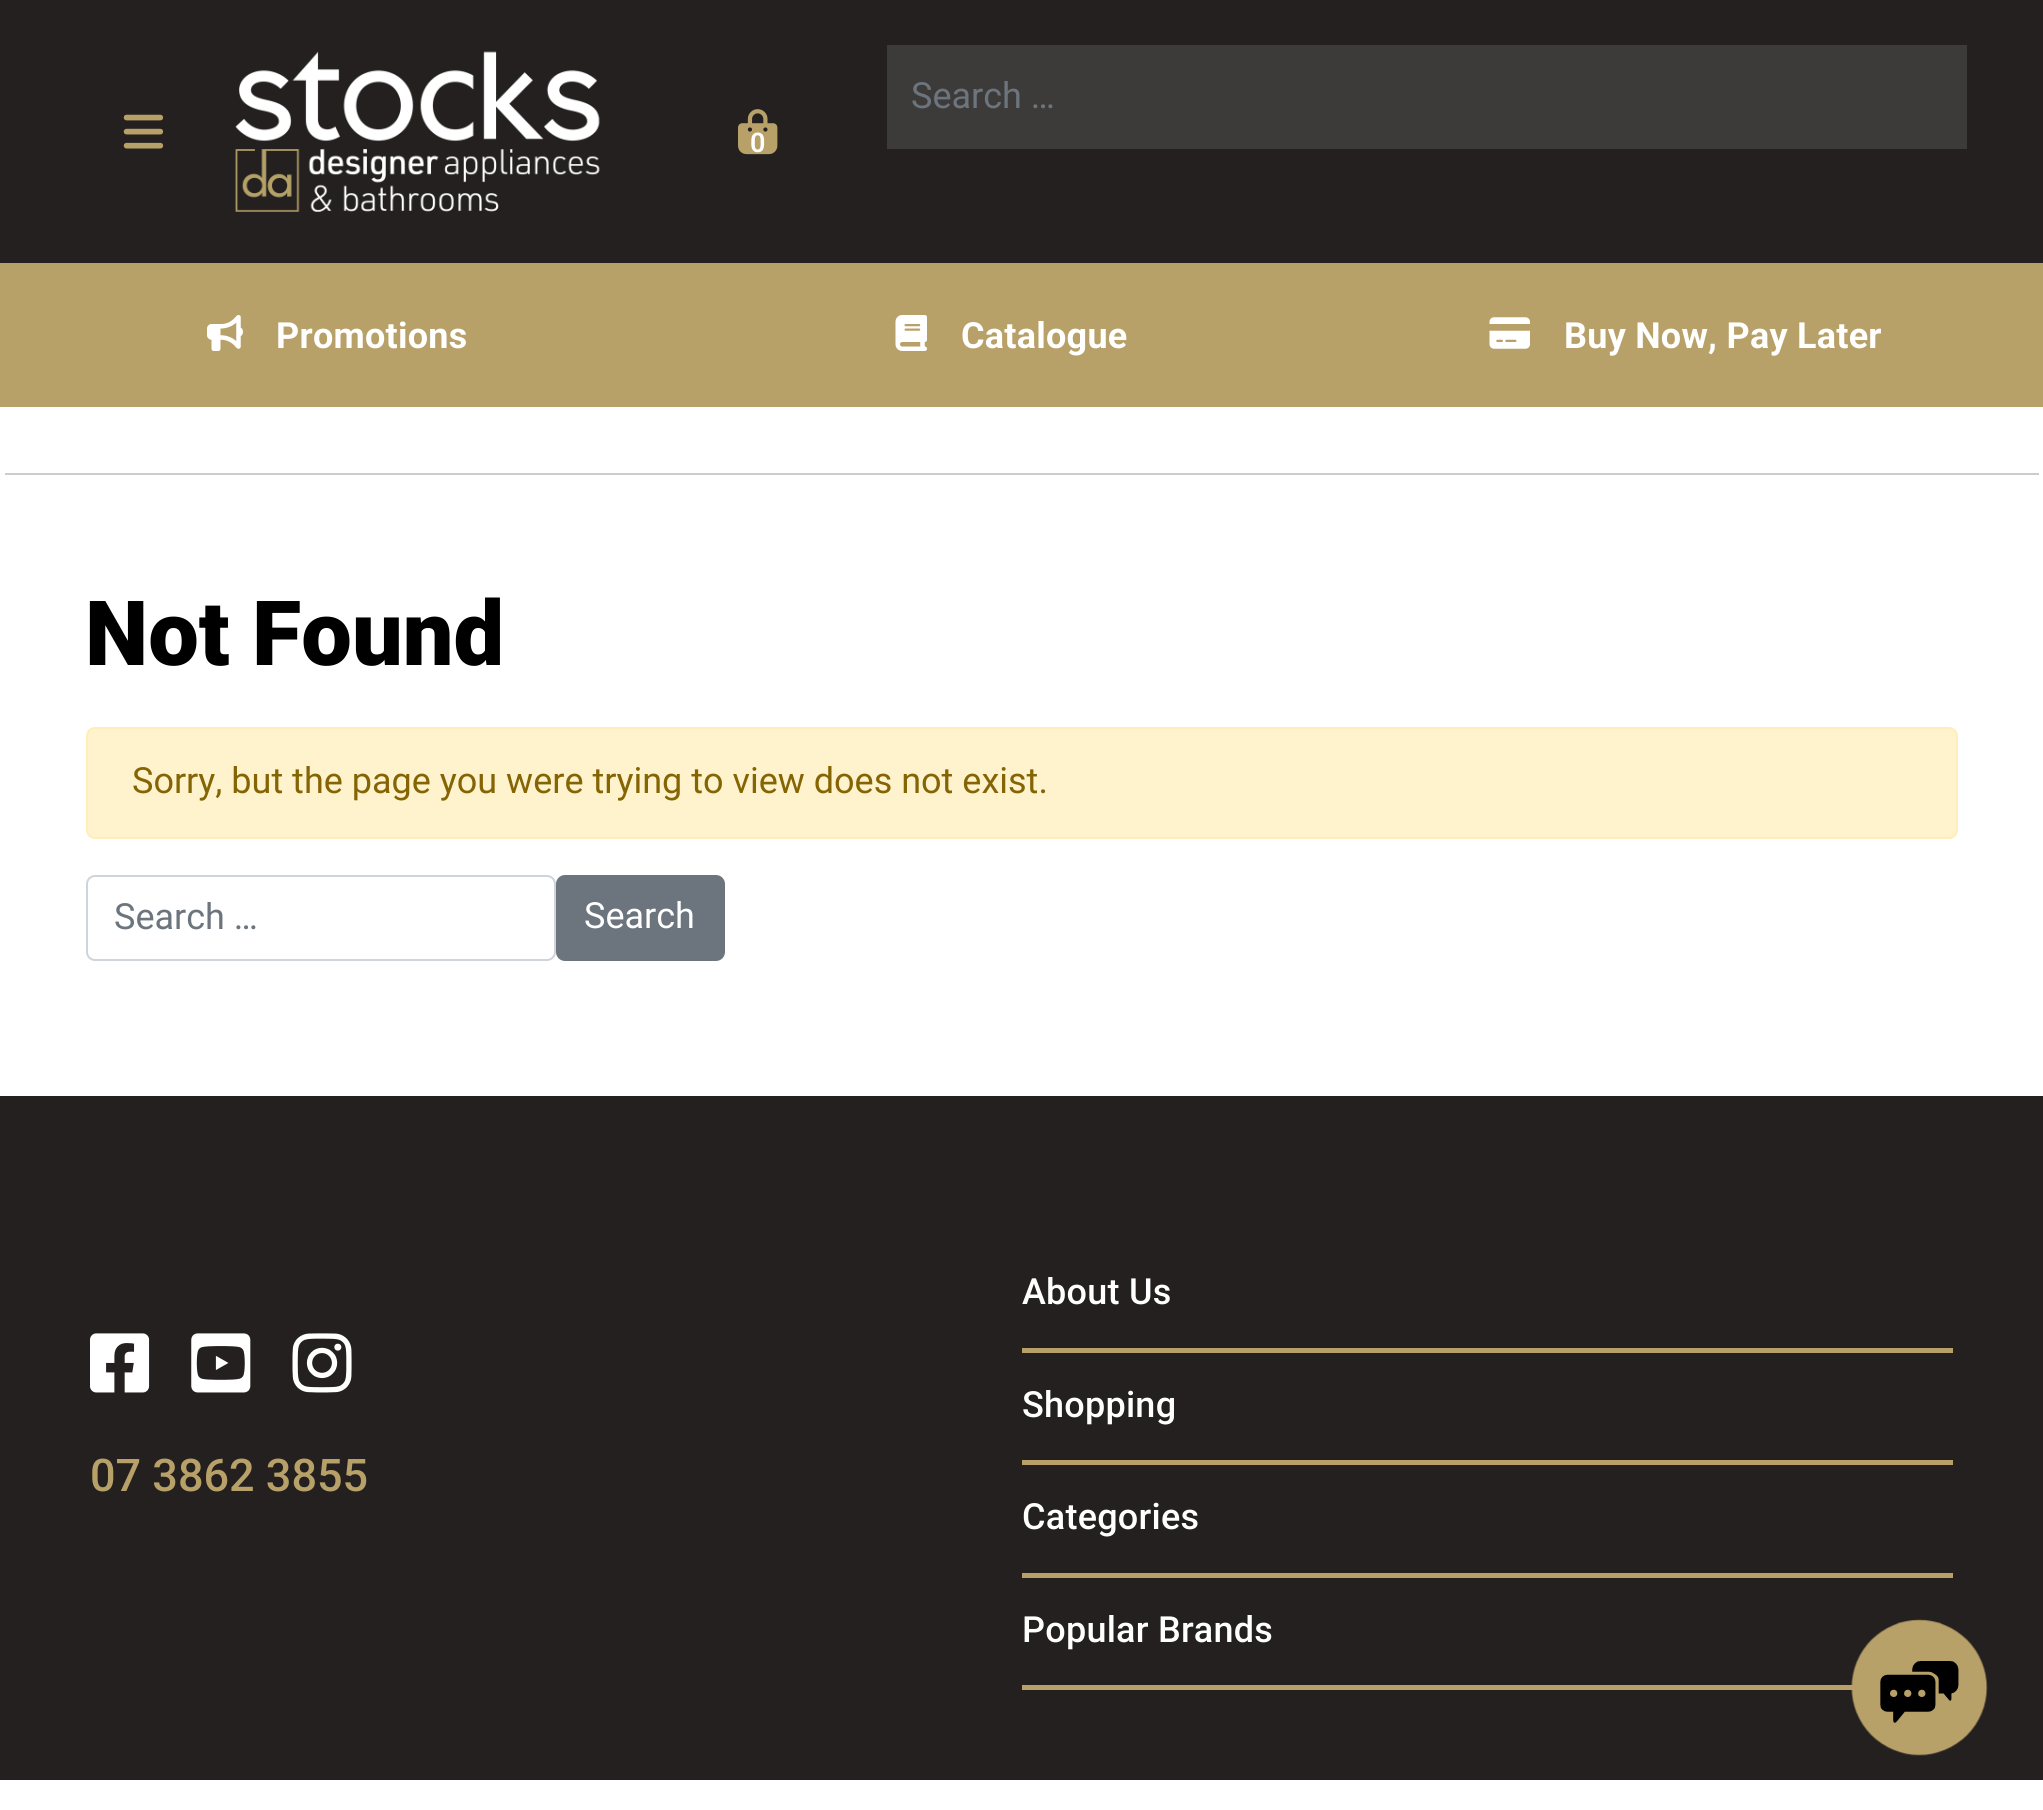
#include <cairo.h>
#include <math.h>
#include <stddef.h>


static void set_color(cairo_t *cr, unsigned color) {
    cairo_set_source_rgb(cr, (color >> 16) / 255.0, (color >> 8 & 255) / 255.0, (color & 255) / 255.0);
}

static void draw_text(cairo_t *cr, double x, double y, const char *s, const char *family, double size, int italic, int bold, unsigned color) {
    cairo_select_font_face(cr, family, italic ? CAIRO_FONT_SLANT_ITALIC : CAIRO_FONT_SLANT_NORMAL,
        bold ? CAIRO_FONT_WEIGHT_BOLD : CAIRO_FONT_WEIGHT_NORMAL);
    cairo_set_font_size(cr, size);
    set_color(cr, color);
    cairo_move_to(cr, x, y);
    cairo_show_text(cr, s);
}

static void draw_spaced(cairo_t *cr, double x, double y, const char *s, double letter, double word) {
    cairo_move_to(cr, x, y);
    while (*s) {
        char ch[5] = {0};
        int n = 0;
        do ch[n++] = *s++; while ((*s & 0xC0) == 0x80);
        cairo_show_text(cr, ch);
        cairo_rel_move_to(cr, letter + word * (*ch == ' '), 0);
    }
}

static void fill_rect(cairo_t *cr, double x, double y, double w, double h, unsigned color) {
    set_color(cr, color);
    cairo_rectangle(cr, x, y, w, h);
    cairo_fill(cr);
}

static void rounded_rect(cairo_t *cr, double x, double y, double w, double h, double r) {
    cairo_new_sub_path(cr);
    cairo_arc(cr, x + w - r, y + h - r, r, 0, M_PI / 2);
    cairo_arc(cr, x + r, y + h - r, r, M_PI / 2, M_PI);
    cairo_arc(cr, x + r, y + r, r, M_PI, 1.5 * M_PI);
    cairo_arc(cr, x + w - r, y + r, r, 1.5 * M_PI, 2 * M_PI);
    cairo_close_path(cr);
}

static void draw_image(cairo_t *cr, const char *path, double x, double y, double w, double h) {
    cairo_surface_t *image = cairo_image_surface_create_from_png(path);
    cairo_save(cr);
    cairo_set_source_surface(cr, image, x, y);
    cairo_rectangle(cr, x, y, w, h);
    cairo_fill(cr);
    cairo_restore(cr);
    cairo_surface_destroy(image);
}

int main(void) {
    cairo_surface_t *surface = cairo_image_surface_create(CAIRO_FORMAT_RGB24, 2043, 1810);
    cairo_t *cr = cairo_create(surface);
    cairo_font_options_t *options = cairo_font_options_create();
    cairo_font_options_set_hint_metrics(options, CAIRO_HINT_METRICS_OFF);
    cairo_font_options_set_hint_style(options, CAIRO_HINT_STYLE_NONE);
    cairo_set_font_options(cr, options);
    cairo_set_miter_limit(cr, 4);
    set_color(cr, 0xFFFFFF);
    cairo_paint(cr);
    fill_rect(cr, 0, 0, 2043, 263, 0x23201F);
    fill_rect(cr, 887, 45, 1080, 104, 0x3D3B3A);
    draw_text(cr, 911, 108, "Search …", "Roboto", 36, 0, 0, 0x6C757D);
    draw_image(cr, "assets/img1.png", 123, 114, 41, 35);
    draw_image(cr, "assets/img2.png", 235, 51, 365, 161);
    draw_image(cr, "assets/img3.png", 738, 109, 40, 46);
    draw_text(cr, 750, 152, "0", "Roboto SemiBold", 27, 0, 0, 0xFFFFFF);
    fill_rect(cr, 0, 263, 2043, 144, 0xB8A168);
    draw_image(cr, "assets/img4.png", 207, 315, 36, 36);
    cairo_select_font_face(cr, "Roboto", CAIRO_FONT_SLANT_NORMAL, CAIRO_FONT_WEIGHT_BOLD);
    cairo_set_font_size(cr, 36);
    set_color(cr, 0xFFFFFF);
    draw_spaced(cr, 276, 348, "Promotions", 0.25, 0);
    draw_image(cr, "assets/img5.png", 895, 315, 32, 36);
    draw_spaced(cr, 961, 348, "Catalogue", 0.25, 0);
    draw_image(cr, "assets/img6.png", 1489, 317, 41, 32);
    draw_spaced(cr, 1564, 348, "Buy Now, Pay Later", 0.25, 0);
    fill_rect(cr, 5, 473, 2034, 2, 0xCCCCCC);
    draw_text(cr, 85, 665, "Not Found", "Roboto Black", 90, 0, 0, 0x000000);
    set_color(cr, 0xFFF3CD);
    rounded_rect(cr, 87, 728, 1870, 110, 8);
    cairo_fill_preserve(cr);
    set_color(cr, 0xFFEEBA);
    cairo_stroke(cr);
    draw_text(cr, 132, 793, "Sorry, but the page you were trying to view does not exist.", "Roboto", 36, 0, 0, 0x856404);
    rounded_rect(cr, 87, 876, 468, 84, 8);
    set_color(cr, 0xCED4DA);
    cairo_stroke(cr);
    draw_text(cr, 114, 929, "Search …", "Roboto", 36, 0, 0, 0x6C757D);
    rounded_rect(cr, 557, 876, 167, 84, 8);
    cairo_fill_preserve(cr);
    cairo_stroke(cr);
    draw_text(cr, 584, 928, "Search", "Roboto", 36, 0, 0, 0xFFFFFF);
    fill_rect(cr, 0, 1096, 2043, 684, 0x23201F);
    draw_image(cr, "assets/img7.png", 90, 1333, 60, 60);
    draw_image(cr, "assets/img8.png", 191, 1333, 60, 60);
    draw_image(cr, "assets/img9.png", 292, 1333, 60, 60);
    draw_text(cr, 90, 1491, "07 3862 3855", "Roboto Medium", 45, 0, 0, 0xB8A168);
    fill_rect(cr, 1022, 1348, 931, 5, 0xB8A168);
    cairo_set_font_size(cr, 36);
    set_color(cr, 0xFFFFFF);
    draw_spaced(cr, 1022, 1304, "About Us", 0.25, 0);
    fill_rect(cr, 1022, 1460, 931, 5, 0xB8A168);
    set_color(cr, 0xFFFFFF);
    draw_spaced(cr, 1022, 1417, "Shopping", 0.25, 0);
    fill_rect(cr, 1022, 1573, 931, 5, 0xB8A168);
    set_color(cr, 0xFFFFFF);
    draw_spaced(cr, 1022, 1529, "Categories", 0.25, 0);
    fill_rect(cr, 1022, 1685, 831, 5, 0xB8A168);
    set_color(cr, 0xFFFFFF);
    draw_spaced(cr, 1022, 1642, "Popular Brands", 0.25, 0);
    draw_image(cr, "assets/img10.png", 1851, 1619, 137, 137);
    cairo_surface_write_to_png(surface, "output.png");
    cairo_font_options_destroy(options);
    cairo_destroy(cr);
    cairo_surface_destroy(surface);
    return 0;
}
